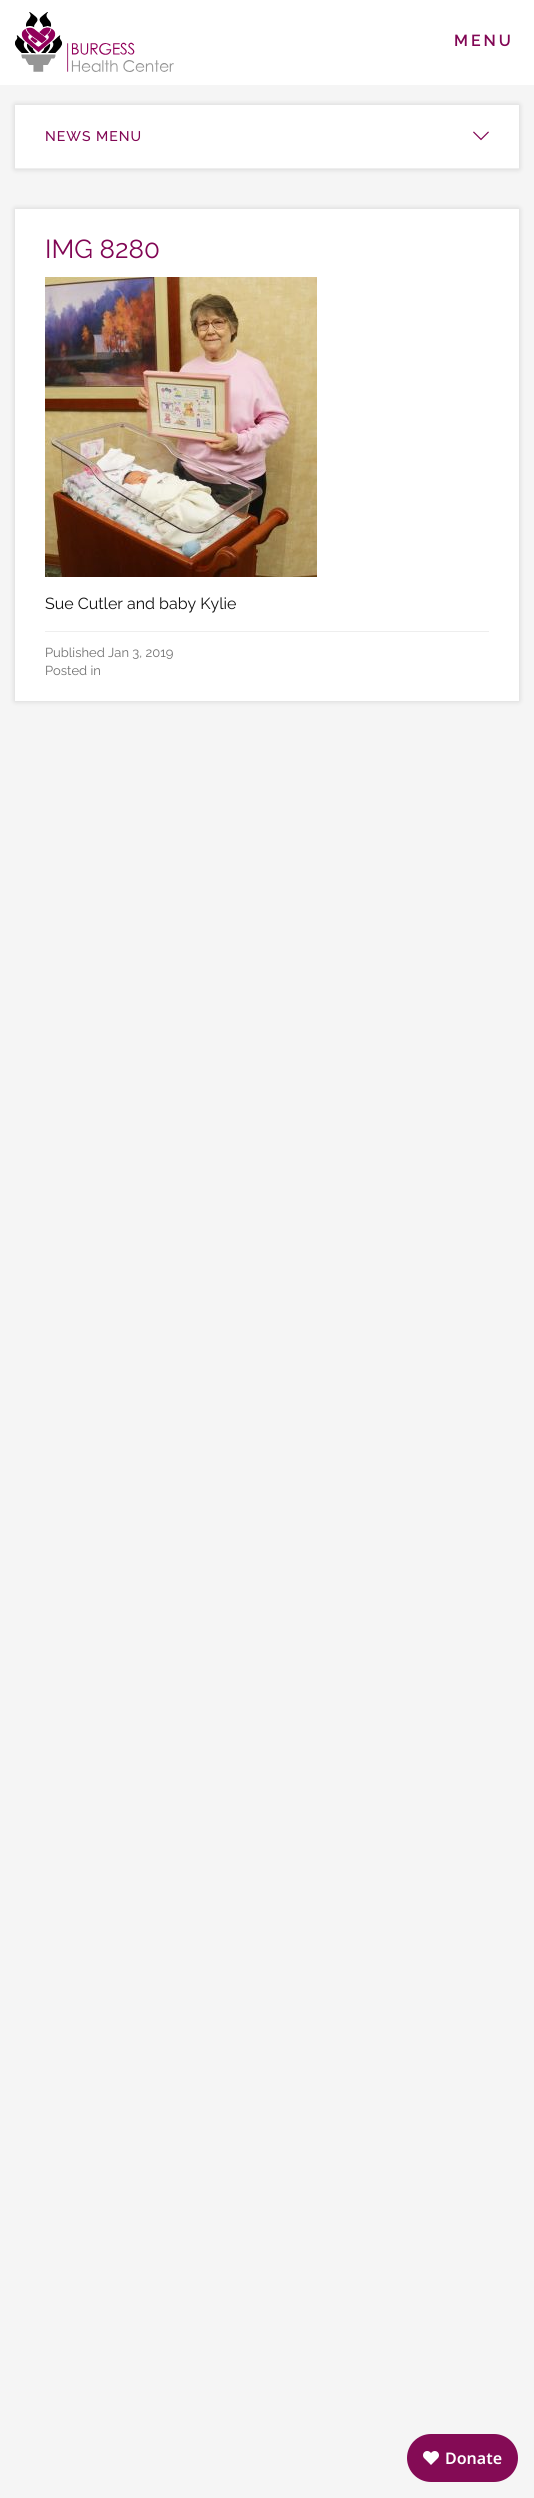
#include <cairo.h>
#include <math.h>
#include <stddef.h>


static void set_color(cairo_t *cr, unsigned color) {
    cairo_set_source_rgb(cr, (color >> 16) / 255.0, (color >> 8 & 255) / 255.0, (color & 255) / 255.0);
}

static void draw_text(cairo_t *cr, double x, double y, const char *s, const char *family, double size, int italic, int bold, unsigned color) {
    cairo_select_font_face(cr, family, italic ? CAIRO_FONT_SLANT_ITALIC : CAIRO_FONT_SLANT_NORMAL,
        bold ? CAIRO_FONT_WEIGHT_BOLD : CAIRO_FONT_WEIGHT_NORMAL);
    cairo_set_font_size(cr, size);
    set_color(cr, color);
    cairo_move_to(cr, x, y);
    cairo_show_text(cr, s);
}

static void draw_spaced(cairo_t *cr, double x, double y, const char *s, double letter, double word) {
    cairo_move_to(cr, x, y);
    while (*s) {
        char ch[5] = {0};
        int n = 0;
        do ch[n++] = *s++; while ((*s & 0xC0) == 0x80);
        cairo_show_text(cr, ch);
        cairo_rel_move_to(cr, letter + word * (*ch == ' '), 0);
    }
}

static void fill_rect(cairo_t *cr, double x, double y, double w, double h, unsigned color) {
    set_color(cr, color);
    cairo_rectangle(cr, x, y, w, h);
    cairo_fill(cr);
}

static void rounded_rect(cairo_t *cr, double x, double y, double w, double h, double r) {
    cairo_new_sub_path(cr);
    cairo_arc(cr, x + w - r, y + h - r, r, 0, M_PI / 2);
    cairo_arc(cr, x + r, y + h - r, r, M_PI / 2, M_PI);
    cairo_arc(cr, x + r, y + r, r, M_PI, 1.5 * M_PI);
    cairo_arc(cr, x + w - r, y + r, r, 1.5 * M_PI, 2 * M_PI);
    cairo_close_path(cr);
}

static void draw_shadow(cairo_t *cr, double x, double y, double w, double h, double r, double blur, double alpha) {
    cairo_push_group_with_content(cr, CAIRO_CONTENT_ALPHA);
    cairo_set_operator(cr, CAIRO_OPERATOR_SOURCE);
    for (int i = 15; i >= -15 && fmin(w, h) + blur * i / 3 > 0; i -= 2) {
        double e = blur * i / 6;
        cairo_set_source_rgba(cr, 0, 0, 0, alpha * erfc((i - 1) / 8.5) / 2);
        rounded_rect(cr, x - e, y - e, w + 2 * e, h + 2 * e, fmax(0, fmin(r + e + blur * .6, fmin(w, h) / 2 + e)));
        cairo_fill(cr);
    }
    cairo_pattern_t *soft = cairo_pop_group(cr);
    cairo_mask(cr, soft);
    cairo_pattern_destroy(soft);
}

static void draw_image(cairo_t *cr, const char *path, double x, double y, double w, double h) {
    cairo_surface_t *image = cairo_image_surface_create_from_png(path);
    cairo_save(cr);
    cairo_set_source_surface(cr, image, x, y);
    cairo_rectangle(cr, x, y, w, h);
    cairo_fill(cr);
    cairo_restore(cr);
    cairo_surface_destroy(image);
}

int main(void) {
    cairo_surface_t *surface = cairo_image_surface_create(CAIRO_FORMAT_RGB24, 534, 2498);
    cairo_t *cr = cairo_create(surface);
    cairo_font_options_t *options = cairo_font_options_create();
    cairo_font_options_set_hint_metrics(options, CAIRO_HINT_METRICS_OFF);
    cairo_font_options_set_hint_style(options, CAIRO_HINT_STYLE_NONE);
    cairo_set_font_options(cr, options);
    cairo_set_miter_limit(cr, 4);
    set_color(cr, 0xFFFFFF);
    cairo_paint(cr);
    draw_image(cr, "assets/img1.png", 15, 12, 159, 60);
    cairo_select_font_face(cr, "Raleway SemiBold", CAIRO_FONT_SLANT_NORMAL, CAIRO_FONT_WEIGHT_NORMAL);
    cairo_set_font_size(cr, 16);
    set_color(cr, 0x810654);
    draw_spaced(cr, 454, 46, "MENU", 3, 0);
    fill_rect(cr, 0, 85, 534, 2413, 0xF5F5F5);
    set_color(cr, 0x000000);
    draw_shadow(cr, 15, 105, 504, 64, 0, 3, 0.15);
    fill_rect(cr, 15, 105, 504, 63, 0xFFFFFF);
    fill_rect(cr, 15, 168, 504, 1, 0xEEEEEE);
    cairo_select_font_face(cr, "Raleway Medium", CAIRO_FONT_SLANT_NORMAL, CAIRO_FONT_WEIGHT_NORMAL);
    cairo_set_font_size(cr, 14);
    set_color(cr, 0x810654);
    draw_spaced(cr, 45, 141, "NEWS MENU", 1, 0);
    draw_image(cr, "assets/img2.png", 473, 131, 16, 10);
    set_color(cr, 0x000000);
    draw_shadow(cr, 15, 209, 504, 492, 0, 3, 0.15);
    fill_rect(cr, 15, 209, 504, 492, 0xFFFFFF);
    draw_text(cr, 45, 258, "IMG 8280", "Raleway", 26, 0, 0, 0x810654);
    draw_image(cr, "assets/img3.png", 45, 277, 272, 300);
    draw_text(cr, 45, 609, "Sue Cutler and baby Kylie", "Raleway", 16, 0, 0, 0x111111);
    fill_rect(cr, 45, 631, 444, 1, 0xEEEEEE);
    draw_text(cr, 45, 657, "Published Jan 3, 2019", "Raleway", 13, 0, 0, 0x707070);
    draw_text(cr, 45, 675, "Posted in", "Raleway", 13, 0, 0, 0x707070);
    set_color(cr, 0x840B55);
    rounded_rect(cr, 407, 2434, 111, 48, 24);
    cairo_fill(cr);
    draw_image(cr, "assets/img4.png", 423, 2451, 16, 14);
    draw_text(cr, 445, 2464, "Donate", "Noto Sans SemiBold", 16, 0, 0, 0xFFFFFF);
    cairo_surface_write_to_png(surface, "output.png");
    cairo_font_options_destroy(options);
    cairo_destroy(cr);
    cairo_surface_destroy(surface);
    return 0;
}
